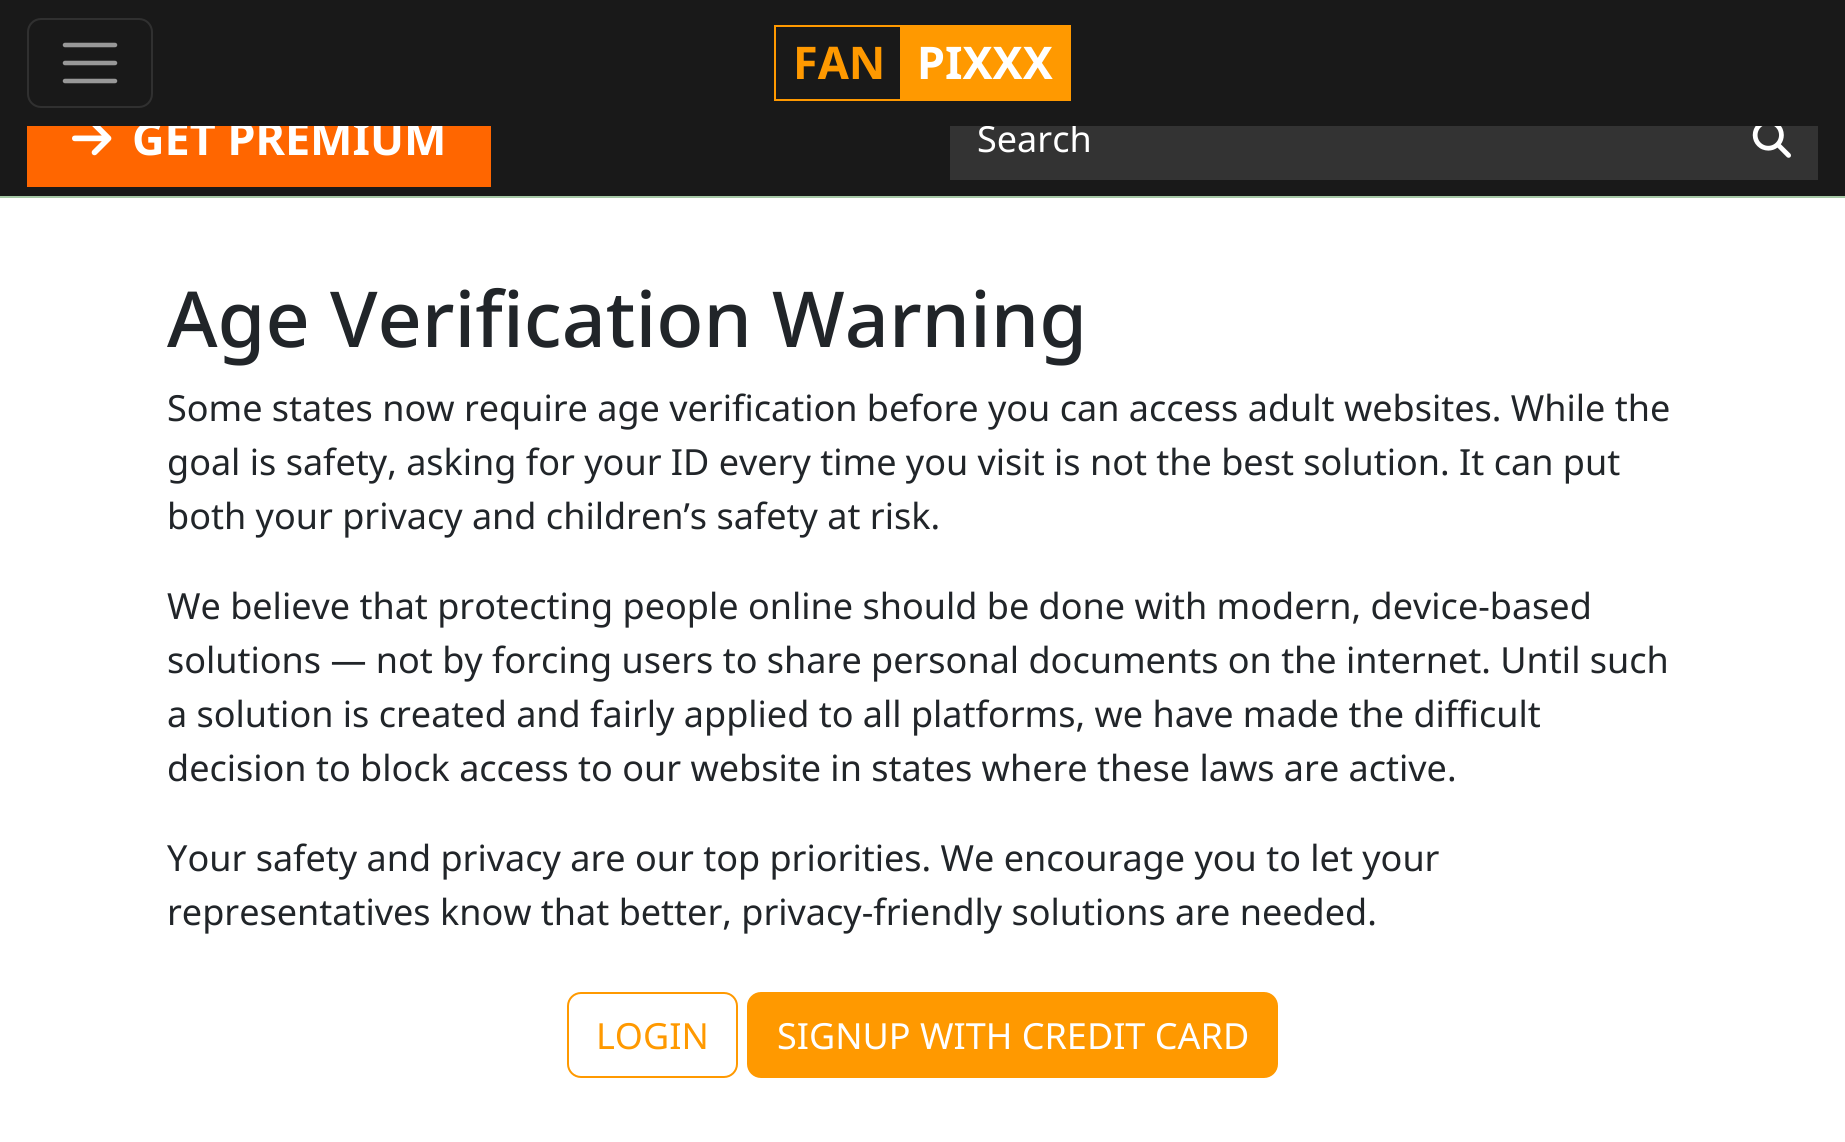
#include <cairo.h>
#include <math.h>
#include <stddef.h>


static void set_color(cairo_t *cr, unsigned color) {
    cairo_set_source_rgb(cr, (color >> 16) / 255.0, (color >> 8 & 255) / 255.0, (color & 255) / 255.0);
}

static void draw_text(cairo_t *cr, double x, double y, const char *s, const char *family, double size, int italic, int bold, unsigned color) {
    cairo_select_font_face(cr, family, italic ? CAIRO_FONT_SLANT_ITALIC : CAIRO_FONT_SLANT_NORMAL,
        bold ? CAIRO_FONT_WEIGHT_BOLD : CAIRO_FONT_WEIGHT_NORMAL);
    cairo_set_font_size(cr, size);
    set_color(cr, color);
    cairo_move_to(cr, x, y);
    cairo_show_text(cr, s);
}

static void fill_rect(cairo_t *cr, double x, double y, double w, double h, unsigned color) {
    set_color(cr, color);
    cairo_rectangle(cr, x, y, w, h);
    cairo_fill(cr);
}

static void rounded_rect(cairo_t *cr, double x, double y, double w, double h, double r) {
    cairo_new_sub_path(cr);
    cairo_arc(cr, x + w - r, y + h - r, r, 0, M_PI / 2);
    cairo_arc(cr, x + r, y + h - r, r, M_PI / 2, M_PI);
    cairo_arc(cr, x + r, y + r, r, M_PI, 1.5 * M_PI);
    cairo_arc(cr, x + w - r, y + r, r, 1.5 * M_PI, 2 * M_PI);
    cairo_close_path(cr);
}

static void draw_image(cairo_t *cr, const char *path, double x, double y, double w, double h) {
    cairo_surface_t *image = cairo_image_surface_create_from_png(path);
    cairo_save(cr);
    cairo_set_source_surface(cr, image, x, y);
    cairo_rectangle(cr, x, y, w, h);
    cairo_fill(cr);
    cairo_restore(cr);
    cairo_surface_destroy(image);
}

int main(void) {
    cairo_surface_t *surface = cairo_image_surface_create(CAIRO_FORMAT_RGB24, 1845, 1142);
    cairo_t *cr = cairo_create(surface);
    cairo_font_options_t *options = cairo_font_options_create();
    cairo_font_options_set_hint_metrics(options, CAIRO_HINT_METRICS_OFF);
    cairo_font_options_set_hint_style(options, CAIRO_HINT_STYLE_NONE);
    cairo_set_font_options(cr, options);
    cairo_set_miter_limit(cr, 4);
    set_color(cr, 0xFFFFFF);
    cairo_paint(cr);
    fill_rect(cr, 0, 126, 1845, 70, 0x191919);
    fill_rect(cr, 27, 126, 464, 61, 0xFF6600);
    draw_text(cr, 132, 155, "GET PREMIUM", "Noto Sans", 45, 0, 1, 0xFFFFFF);
    fill_rect(cr, 950, 126, 868, 54, 0x333333);
    draw_text(cr, 977, 152, "Search", "Noto Sans", 36, 0, 0, 0xFFFFFF);
    fill_rect(cr, 0, 0, 1845, 126, 0x191919);
    rounded_rect(cr, 28, 19, 124, 88, 13);
    set_color(cr, 0x303030);
    cairo_stroke(cr);
    cairo_new_path(cr);
    cairo_move_to(cr, 65, 45);
    cairo_line_to(cr, 115, 45);
    cairo_move_to(cr, 65, 63);
    cairo_line_to(cr, 115, 63);
    cairo_move_to(cr, 65, 81);
    cairo_line_to(cr, 115, 81);
    set_color(cr, 0x989898);
    cairo_set_line_width(cr, 4.5);
    cairo_set_line_cap(cr, CAIRO_LINE_CAP_ROUND);
    cairo_stroke(cr);
    cairo_rectangle(cr, 775, 26, 295, 74);
    set_color(cr, 0xFF9900);
    cairo_set_line_width(cr, 2);
    cairo_set_line_cap(cr, CAIRO_LINE_CAP_BUTT);
    cairo_stroke(cr);
    draw_text(cr, 793, 79, "FAN", "Noto Sans", 45, 0, 1, 0xFF9900);
    fill_rect(cr, 900, 27, 169, 72, 0xFF9900);
    draw_text(cr, 917, 79, "PIXXX", "Noto Sans", 45, 0, 1, 0xFFFFFF);
    fill_rect(cr, 0, 196, 1845, 2, 0xA6C8A6);
    draw_image(cr, "assets/img1.png", 72, 126, 40, 30);
    draw_image(cr, "assets/img2.png", 1752, 126, 39, 32);
    draw_text(cr, 167, 347, "Age Verification Warning", "Noto Sans Medium", 77.25, 0, 0, 0x212529);
    draw_text(cr, 167, 421, "Some states now require age verification before you can access adult websites. While the", "Noto Sans", 36, 0, 0, 0x212529);
    draw_text(cr, 167, 475, "goal is safety, asking for your ID every time you visit is not the best solution. It can put", "Noto Sans", 36, 0, 0, 0x212529);
    draw_text(cr, 167, 529, "both your privacy and children’s safety at risk.", "Noto Sans", 36, 0, 0, 0x212529);
    draw_text(cr, 167, 619, "We believe that protecting people online should be done with modern, device-based", "Noto Sans", 36, 0, 0, 0x212529);
    draw_text(cr, 167, 673, "solutions — not by forcing users to share personal documents on the internet. Until such", "Noto Sans", 36, 0, 0, 0x212529);
    draw_text(cr, 167, 727, "a solution is created and fairly applied to all platforms, we have made the difficult", "Noto Sans", 36, 0, 0, 0x212529);
    draw_text(cr, 167, 781, "decision to block access to our website in states where these laws are active.", "Noto Sans", 36, 0, 0, 0x212529);
    draw_text(cr, 167, 871, "Your safety and privacy are our top priorities. We encourage you to let your", "Noto Sans", 36, 0, 0, 0x212529);
    draw_text(cr, 167, 925, "representatives know that better, privacy-friendly solutions are needed.", "Noto Sans", 36, 0, 0, 0x212529);
    rounded_rect(cr, 568, 993, 169, 84, 13);
    set_color(cr, 0xFF9900);
    cairo_stroke(cr);
    draw_text(cr, 596, 1049, "LOGIN", "Noto Sans", 36, 0, 0, 0xFF9900);
    rounded_rect(cr, 748, 993, 529, 84, 13);
    cairo_fill_preserve(cr);
    cairo_stroke(cr);
    draw_text(cr, 777, 1049, "SIGNUP WITH CREDIT CARD", "Noto Sans", 36, 0, 0, 0xFFFFFF);
    cairo_surface_write_to_png(surface, "output.png");
    cairo_font_options_destroy(options);
    cairo_destroy(cr);
    cairo_surface_destroy(surface);
    return 0;
}
